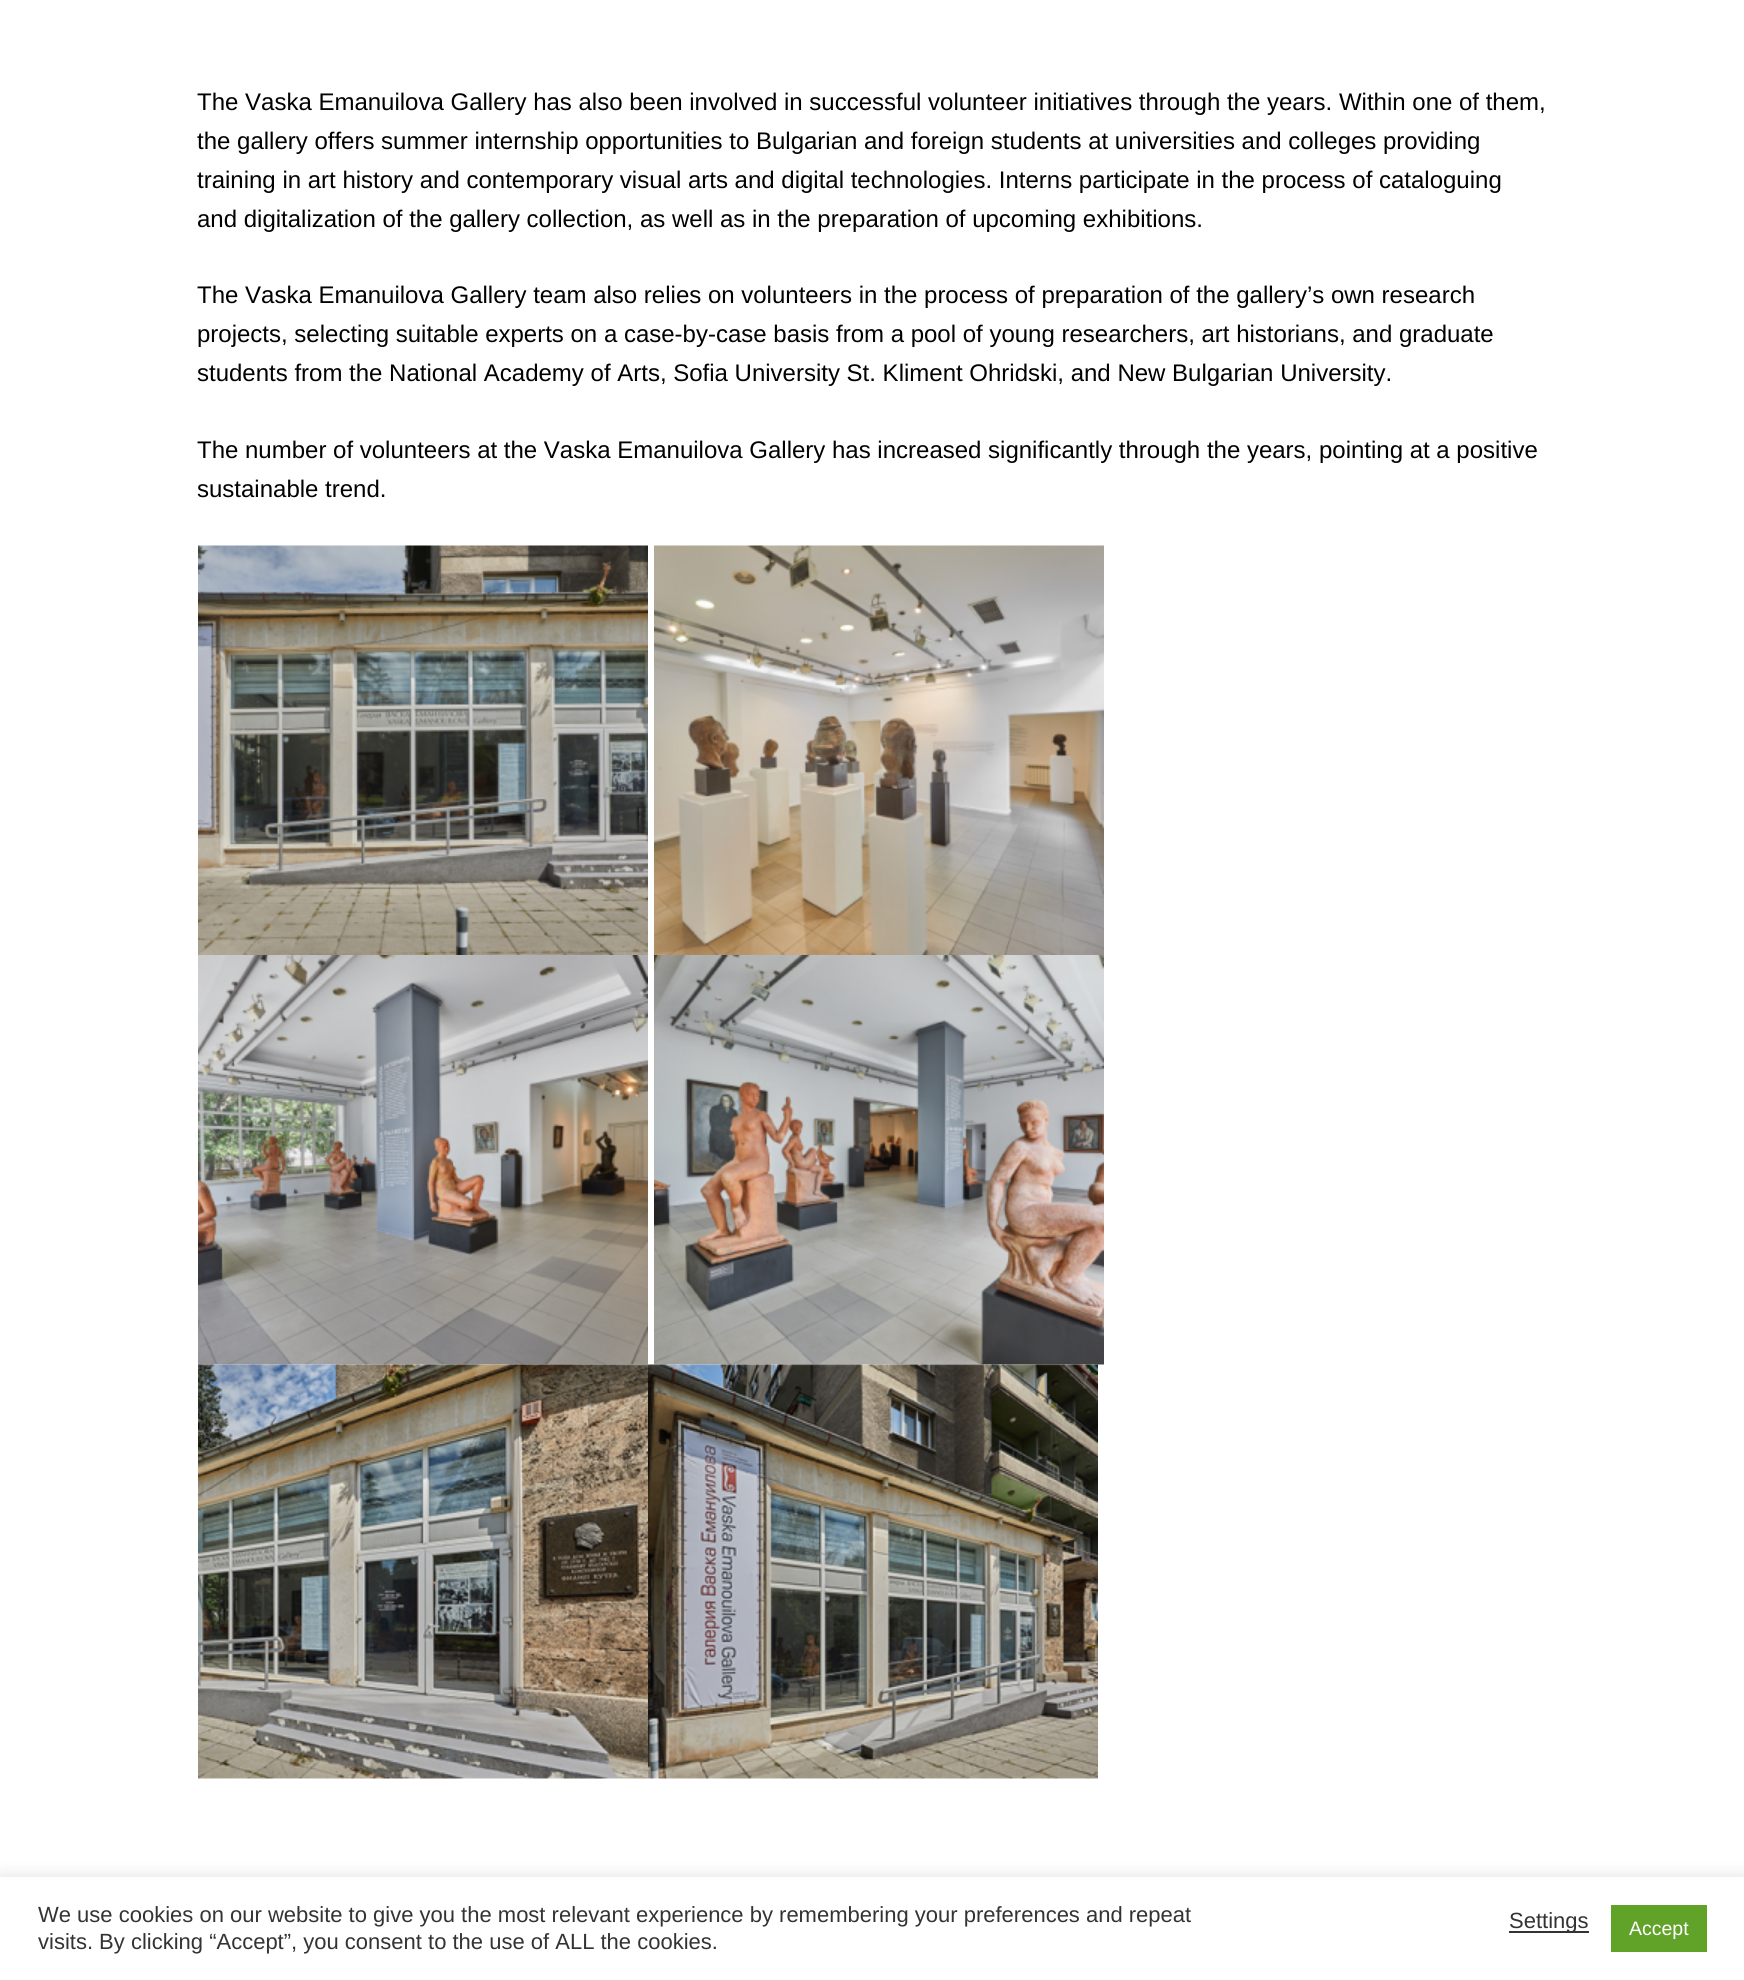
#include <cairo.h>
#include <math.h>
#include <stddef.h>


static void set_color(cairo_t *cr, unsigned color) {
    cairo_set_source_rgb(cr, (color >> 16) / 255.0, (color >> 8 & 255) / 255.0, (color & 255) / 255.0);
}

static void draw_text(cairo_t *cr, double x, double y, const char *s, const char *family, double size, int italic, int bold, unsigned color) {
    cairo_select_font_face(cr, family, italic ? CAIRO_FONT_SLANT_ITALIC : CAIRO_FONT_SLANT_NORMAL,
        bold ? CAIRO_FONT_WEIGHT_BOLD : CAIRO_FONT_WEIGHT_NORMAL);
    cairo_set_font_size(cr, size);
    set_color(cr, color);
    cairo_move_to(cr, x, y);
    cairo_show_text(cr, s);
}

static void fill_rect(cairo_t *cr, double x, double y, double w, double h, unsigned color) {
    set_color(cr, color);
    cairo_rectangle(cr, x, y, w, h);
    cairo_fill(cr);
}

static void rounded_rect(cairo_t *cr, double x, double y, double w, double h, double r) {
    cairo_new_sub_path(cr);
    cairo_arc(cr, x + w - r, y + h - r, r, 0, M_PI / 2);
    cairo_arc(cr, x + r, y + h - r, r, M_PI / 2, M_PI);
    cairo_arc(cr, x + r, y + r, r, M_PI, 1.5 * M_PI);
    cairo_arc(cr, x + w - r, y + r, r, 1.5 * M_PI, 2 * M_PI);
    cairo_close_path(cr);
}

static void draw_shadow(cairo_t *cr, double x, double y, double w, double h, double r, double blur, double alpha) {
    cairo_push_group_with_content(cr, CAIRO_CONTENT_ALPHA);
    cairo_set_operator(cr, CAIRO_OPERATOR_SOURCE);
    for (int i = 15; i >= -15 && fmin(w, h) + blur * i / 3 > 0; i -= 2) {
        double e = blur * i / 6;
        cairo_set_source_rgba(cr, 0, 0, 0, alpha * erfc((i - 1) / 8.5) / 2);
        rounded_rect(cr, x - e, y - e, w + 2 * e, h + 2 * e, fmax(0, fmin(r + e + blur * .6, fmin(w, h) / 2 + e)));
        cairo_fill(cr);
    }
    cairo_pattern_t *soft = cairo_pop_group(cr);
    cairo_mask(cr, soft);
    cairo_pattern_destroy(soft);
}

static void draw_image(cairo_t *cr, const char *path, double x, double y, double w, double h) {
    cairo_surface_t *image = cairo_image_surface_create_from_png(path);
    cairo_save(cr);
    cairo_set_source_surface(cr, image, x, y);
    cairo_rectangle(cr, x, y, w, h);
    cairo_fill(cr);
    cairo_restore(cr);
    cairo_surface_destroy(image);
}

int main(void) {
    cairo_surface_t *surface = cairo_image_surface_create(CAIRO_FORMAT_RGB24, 1744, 1980);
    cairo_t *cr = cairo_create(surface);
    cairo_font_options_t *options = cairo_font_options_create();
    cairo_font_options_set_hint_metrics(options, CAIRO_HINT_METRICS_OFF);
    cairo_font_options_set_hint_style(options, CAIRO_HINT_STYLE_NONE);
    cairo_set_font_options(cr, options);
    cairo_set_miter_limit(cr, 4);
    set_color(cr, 0xFFFFFF);
    cairo_paint(cr);
    draw_text(cr, 197, 110, "The Vaska Emanuilova Gallery has also been involved in successful volunteer initiatives through the years. Within one of them,", "Liberation Sans", 24, 0, 0, 0x000000);
    draw_text(cr, 197, 149, "the gallery offers summer internship opportunities to Bulgarian and foreign students at universities and colleges providing", "Liberation Sans", 24, 0, 0, 0x000000);
    draw_text(cr, 197, 188, "training in art history and contemporary visual arts and digital technologies. Interns participate in the process of cataloguing", "Liberation Sans", 24, 0, 0, 0x000000);
    draw_text(cr, 197, 227, "and digitalization of the gallery collection, as well as in the preparation of upcoming exhibitions.", "Liberation Sans", 24, 0, 0, 0x000000);
    draw_text(cr, 197, 303, "The Vaska Emanuilova Gallery team also relies on volunteers in the process of preparation of the gallery’s own research", "Liberation Sans", 24, 0, 0, 0x000000);
    draw_text(cr, 197, 342, "projects, selecting suitable experts on a case-by-case basis from a pool of young researchers, art historians, and graduate", "Liberation Sans", 24, 0, 0, 0x000000);
    draw_text(cr, 197, 381, "students from the National Academy of Arts, Sofia University St. Kliment Ohridski, and New Bulgarian University.", "Liberation Sans", 24, 0, 0, 0x000000);
    draw_text(cr, 197, 458, "The number of volunteers at the Vaska Emanuilova Gallery has increased significantly through the years, pointing at a positive", "Liberation Sans", 24, 0, 0, 0x000000);
    draw_text(cr, 197, 497, "sustainable trend.", "Liberation Sans", 24, 0, 0, 0x000000);
    draw_image(cr, "assets/img1.png", 198, 545, 450, 410);
    draw_image(cr, "assets/img2.png", 654, 545, 450, 410);
    draw_image(cr, "assets/img3.png", 198, 955, 450, 410);
    draw_image(cr, "assets/img4.png", 654, 955, 450, 410);
    draw_image(cr, "assets/img5.png", 198, 1364, 450, 415);
    draw_image(cr, "assets/img6.png", 648, 1364, 450, 415);
    set_color(cr, 0xACABAB);
    draw_shadow(cr, 0, 1875, 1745, 104, 0, 7.5, 0.3);
    fill_rect(cr, 0, 1877, 1744, 103, 0xFFFFFF);
    draw_text(cr, 38, 1922, "We use cookies on our website to give you the most relevant experience by remembering your preferences and repeat", "Liberation Sans", 22, 0, 0, 0x333333);
    draw_text(cr, 38, 1949, "visits. By clicking “Accept”, you consent to the use of ALL the cookies.", "Liberation Sans", 22, 0, 0, 0x333333);
    fill_rect(cr, 1509, 1931, 80, 2, 0x333333);
    draw_text(cr, 1509, 1928, "Settings", "Liberation Sans", 22, 0, 0, 0x333333);
    fill_rect(cr, 1611, 1905, 96, 47, 0x61A229);
    draw_text(cr, 1629, 1935, "Accept", "Liberation Sans", 19.5, 0, 0, 0xFFFFFF);
    cairo_surface_write_to_png(surface, "output.png");
    cairo_font_options_destroy(options);
    cairo_destroy(cr);
    cairo_surface_destroy(surface);
    return 0;
}
